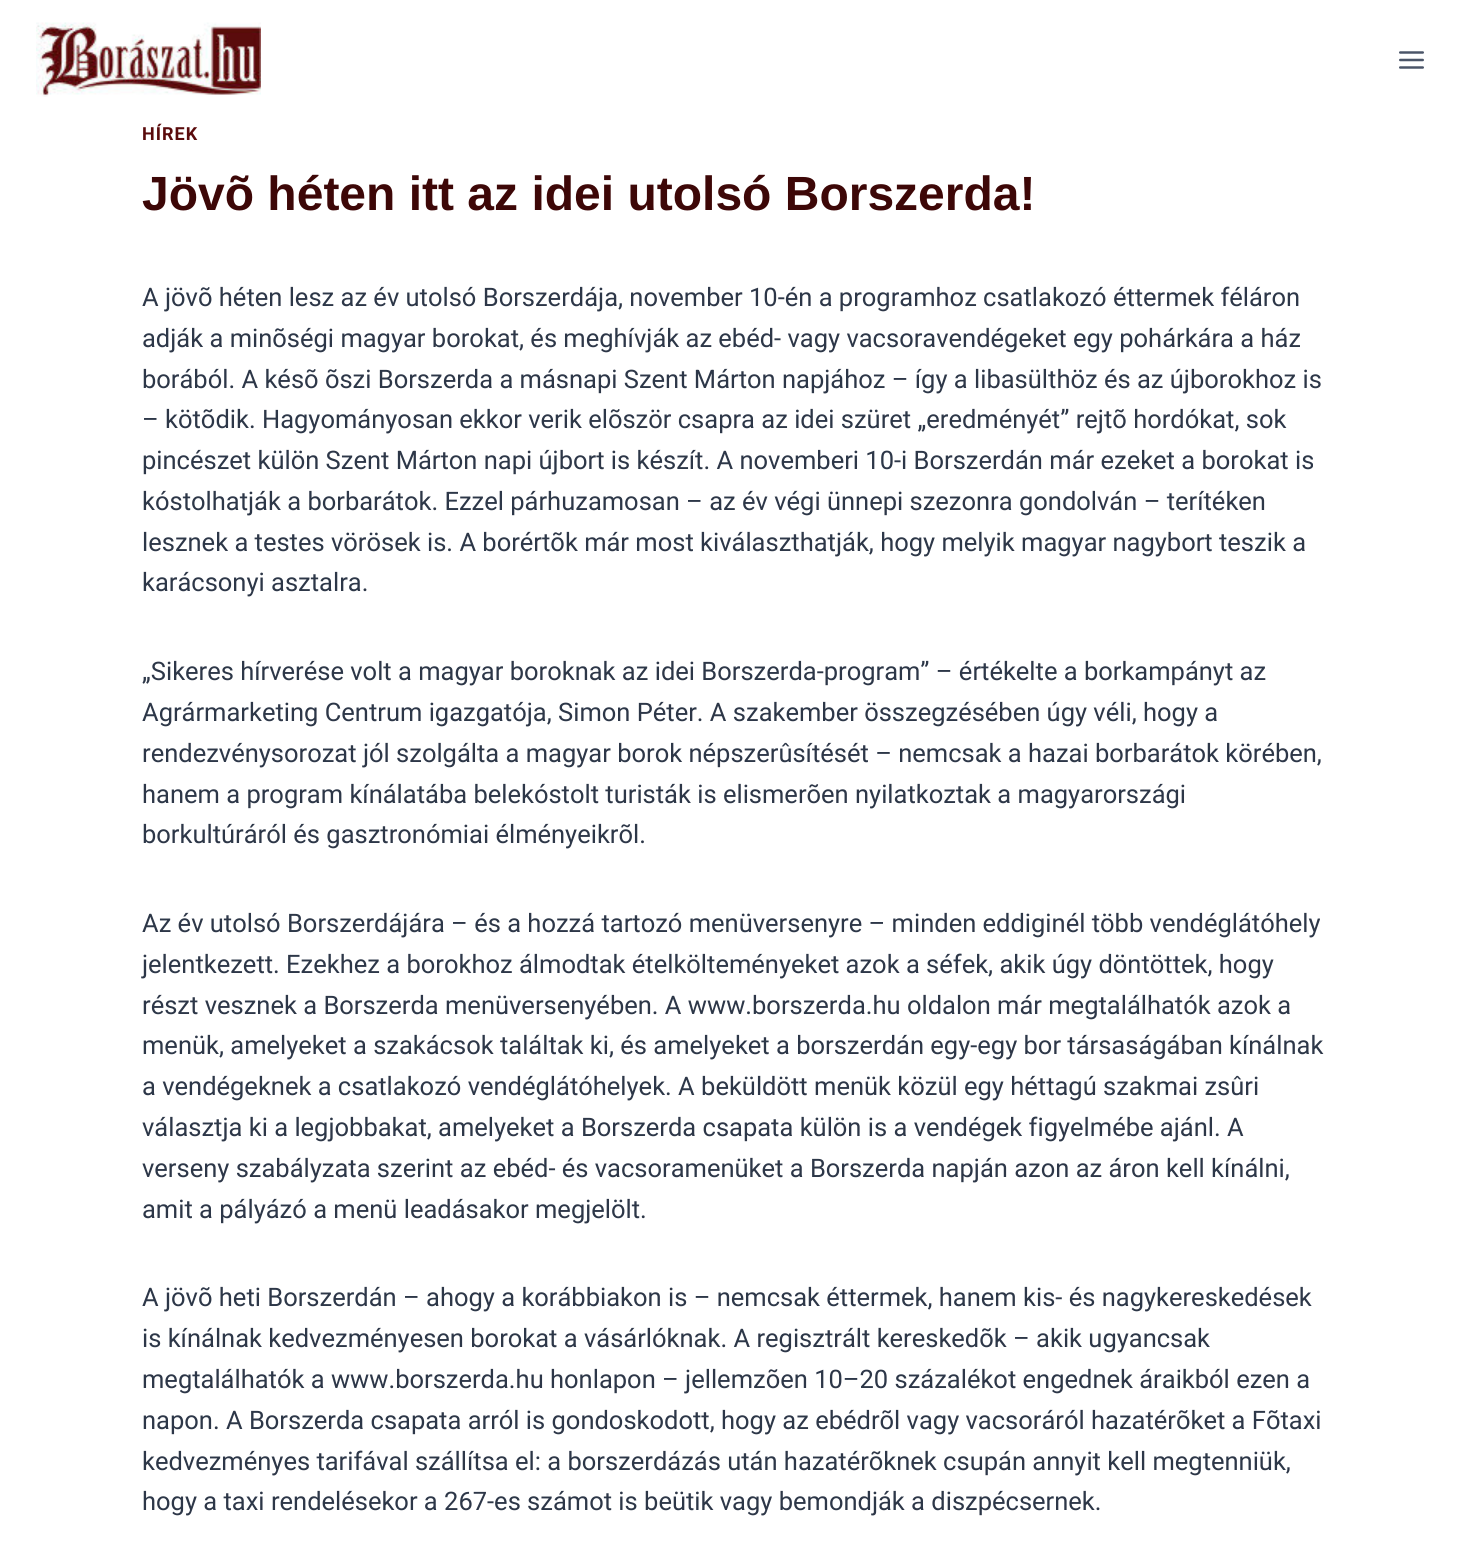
#include <cairo.h>
#include <math.h>
#include <stddef.h>


static void set_color(cairo_t *cr, unsigned color) {
    cairo_set_source_rgb(cr, (color >> 16) / 255.0, (color >> 8 & 255) / 255.0, (color & 255) / 255.0);
}

static void draw_text(cairo_t *cr, double x, double y, const char *s, const char *family, double size, int italic, int bold, unsigned color) {
    cairo_select_font_face(cr, family, italic ? CAIRO_FONT_SLANT_ITALIC : CAIRO_FONT_SLANT_NORMAL,
        bold ? CAIRO_FONT_WEIGHT_BOLD : CAIRO_FONT_WEIGHT_NORMAL);
    cairo_set_font_size(cr, size);
    set_color(cr, color);
    cairo_move_to(cr, x, y);
    cairo_show_text(cr, s);
}

static void draw_spaced(cairo_t *cr, double x, double y, const char *s, double letter, double word) {
    cairo_move_to(cr, x, y);
    while (*s) {
        char ch[5] = {0};
        int n = 0;
        do ch[n++] = *s++; while ((*s & 0xC0) == 0x80);
        cairo_show_text(cr, ch);
        cairo_rel_move_to(cr, letter + word * (*ch == ' '), 0);
    }
}

static void draw_image(cairo_t *cr, const char *path, double x, double y, double w, double h) {
    cairo_surface_t *image = cairo_image_surface_create_from_png(path);
    cairo_save(cr);
    cairo_set_source_surface(cr, image, x, y);
    cairo_rectangle(cr, x, y, w, h);
    cairo_fill(cr);
    cairo_restore(cr);
    cairo_surface_destroy(image);
}

int main(void) {
    cairo_surface_t *surface = cairo_image_surface_create(CAIRO_FORMAT_RGB24, 1474, 1550);
    cairo_t *cr = cairo_create(surface);
    cairo_font_options_t *options = cairo_font_options_create();
    cairo_font_options_set_hint_metrics(options, CAIRO_HINT_METRICS_OFF);
    cairo_font_options_set_hint_style(options, CAIRO_HINT_STYLE_NONE);
    cairo_set_font_options(cr, options);
    cairo_set_miter_limit(cr, 4);
    set_color(cr, 0xFFFFFF);
    cairo_paint(cr);
    draw_image(cr, "assets/img1.png", 36, 22, 225, 75);
    draw_image(cr, "assets/img2.png", 1399, 51, 25, 18);
    cairo_select_font_face(cr, "Roboto", CAIRO_FONT_SLANT_NORMAL, CAIRO_FONT_WEIGHT_BOLD);
    cairo_set_font_size(cr, 18);
    set_color(cr, 0x5A0B0C);
    draw_spaced(cr, 142, 140, "HÍREK", 1, 0);
    draw_text(cr, 142, 210, "Jövõ héten itt az idei utolsó Borszerda!", "Liberation Sans", 48, 0, 1, 0x3D0707);
    draw_text(cr, 142, 306, "A jövõ héten lesz az év utolsó Borszerdája, november 10-én a programhoz csatlakozó éttermek féláron", "Roboto", 25.5, 0, 0, 0x2D3748);
    draw_text(cr, 142, 347, "adják a minõségi magyar borokat, és meghívják az ebéd- vagy vacsoravendégeket egy pohárkára a ház", "Roboto", 25.5, 0, 0, 0x2D3748);
    draw_text(cr, 142, 388, "borából. A késõ õszi Borszerda a másnapi Szent Márton napjához – így a libasülthöz és az újborokhoz is", "Roboto", 25.5, 0, 0, 0x2D3748);
    draw_text(cr, 142, 428, "– kötõdik. Hagyományosan ekkor verik elõször csapra az idei szüret „eredményét” rejtõ hordókat, sok", "Roboto", 25.5, 0, 0, 0x2D3748);
    draw_text(cr, 142, 469, "pincészet külön Szent Márton napi újbort is készít. A novemberi 10-i Borszerdán már ezeket a borokat is", "Roboto", 25.5, 0, 0, 0x2D3748);
    draw_text(cr, 142, 510, "kóstolhatják a borbarátok. Ezzel párhuzamosan – az év végi ünnepi szezonra gondolván – terítéken", "Roboto", 25.5, 0, 0, 0x2D3748);
    draw_text(cr, 142, 551, "lesznek a testes vörösek is. A borértõk már most kiválaszthatják, hogy melyik magyar nagybort teszik a", "Roboto", 25.5, 0, 0, 0x2D3748);
    draw_text(cr, 142, 591, "karácsonyi asztalra.", "Roboto", 25.5, 0, 0, 0x2D3748);
    draw_text(cr, 142, 680, "„Sikeres hírverése volt a magyar boroknak az idei Borszerda-program” – értékelte a borkampányt az", "Roboto", 25.5, 0, 0, 0x2D3748);
    draw_text(cr, 142, 721, "Agrármarketing Centrum igazgatója, Simon Péter. A szakember összegzésében úgy véli, hogy a", "Roboto", 25.5, 0, 0, 0x2D3748);
    draw_text(cr, 142, 762, "rendezvénysorozat jól szolgálta a magyar borok népszerûsítését – nemcsak a hazai borbarátok körében,", "Roboto", 25.5, 0, 0, 0x2D3748);
    draw_text(cr, 142, 803, "hanem a program kínálatába belekóstolt turisták is elismerõen nyilatkoztak a magyarországi", "Roboto", 25.5, 0, 0, 0x2D3748);
    draw_text(cr, 142, 843, "borkultúráról és gasztronómiai élményeikrõl.", "Roboto", 25.5, 0, 0, 0x2D3748);
    draw_text(cr, 142, 932, "Az év utolsó Borszerdájára – és a hozzá tartozó menüversenyre – minden eddiginél több vendéglátóhely", "Roboto", 25.5, 0, 0, 0x2D3748);
    draw_text(cr, 142, 973, "jelentkezett. Ezekhez a borokhoz álmodtak ételkölteményeket azok a séfek, akik úgy döntöttek, hogy", "Roboto", 25.5, 0, 0, 0x2D3748);
    draw_text(cr, 142, 1014, "részt vesznek a Borszerda menüversenyében. A www.borszerda.hu oldalon már megtalálhatók azok a", "Roboto", 25.5, 0, 0, 0x2D3748);
    draw_text(cr, 142, 1054, "menük, amelyeket a szakácsok találtak ki, és amelyeket a borszerdán egy-egy bor társaságában kínálnak", "Roboto", 25.5, 0, 0, 0x2D3748);
    draw_text(cr, 142, 1095, "a vendégeknek a csatlakozó vendéglátóhelyek. A beküldött menük közül egy héttagú szakmai zsûri", "Roboto", 25.5, 0, 0, 0x2D3748);
    draw_text(cr, 142, 1136, "választja ki a legjobbakat, amelyeket a Borszerda csapata külön is a vendégek figyelmébe ajánl. A", "Roboto", 25.5, 0, 0, 0x2D3748);
    draw_text(cr, 142, 1177, "verseny szabályzata szerint az ebéd- és vacsoramenüket a Borszerda napján azon az áron kell kínálni,", "Roboto", 25.5, 0, 0, 0x2D3748);
    draw_text(cr, 142, 1218, "amit a pályázó a menü leadásakor megjelölt.", "Roboto", 25.5, 0, 0, 0x2D3748);
    draw_text(cr, 142, 1306, "A jövõ heti Borszerdán – ahogy a korábbiakon is – nemcsak éttermek, hanem kis- és nagykereskedések", "Roboto", 25.5, 0, 0, 0x2D3748);
    draw_text(cr, 142, 1347, "is kínálnak kedvezményesen borokat a vásárlóknak. A regisztrált kereskedõk – akik ugyancsak", "Roboto", 25.5, 0, 0, 0x2D3748);
    draw_text(cr, 142, 1388, "megtalálhatók a www.borszerda.hu honlapon – jellemzõen 10–20 százalékot engednek áraikból ezen a", "Roboto", 25.5, 0, 0, 0x2D3748);
    draw_text(cr, 142, 1429, "napon. A Borszerda csapata arról is gondoskodott, hogy az ebédrõl vagy vacsoráról hazatérõket a Fõtaxi", "Roboto", 25.5, 0, 0, 0x2D3748);
    draw_text(cr, 142, 1470, "kedvezményes tarifával szállítsa el: a borszerdázás után hazatérõknek csupán annyit kell megtenniük,", "Roboto", 25.5, 0, 0, 0x2D3748);
    draw_text(cr, 142, 1510, "hogy a taxi rendelésekor a 267-es számot is beütik vagy bemondják a diszpécsernek.", "Roboto", 25.5, 0, 0, 0x2D3748);
    cairo_surface_write_to_png(surface, "output.png");
    cairo_font_options_destroy(options);
    cairo_destroy(cr);
    cairo_surface_destroy(surface);
    return 0;
}
